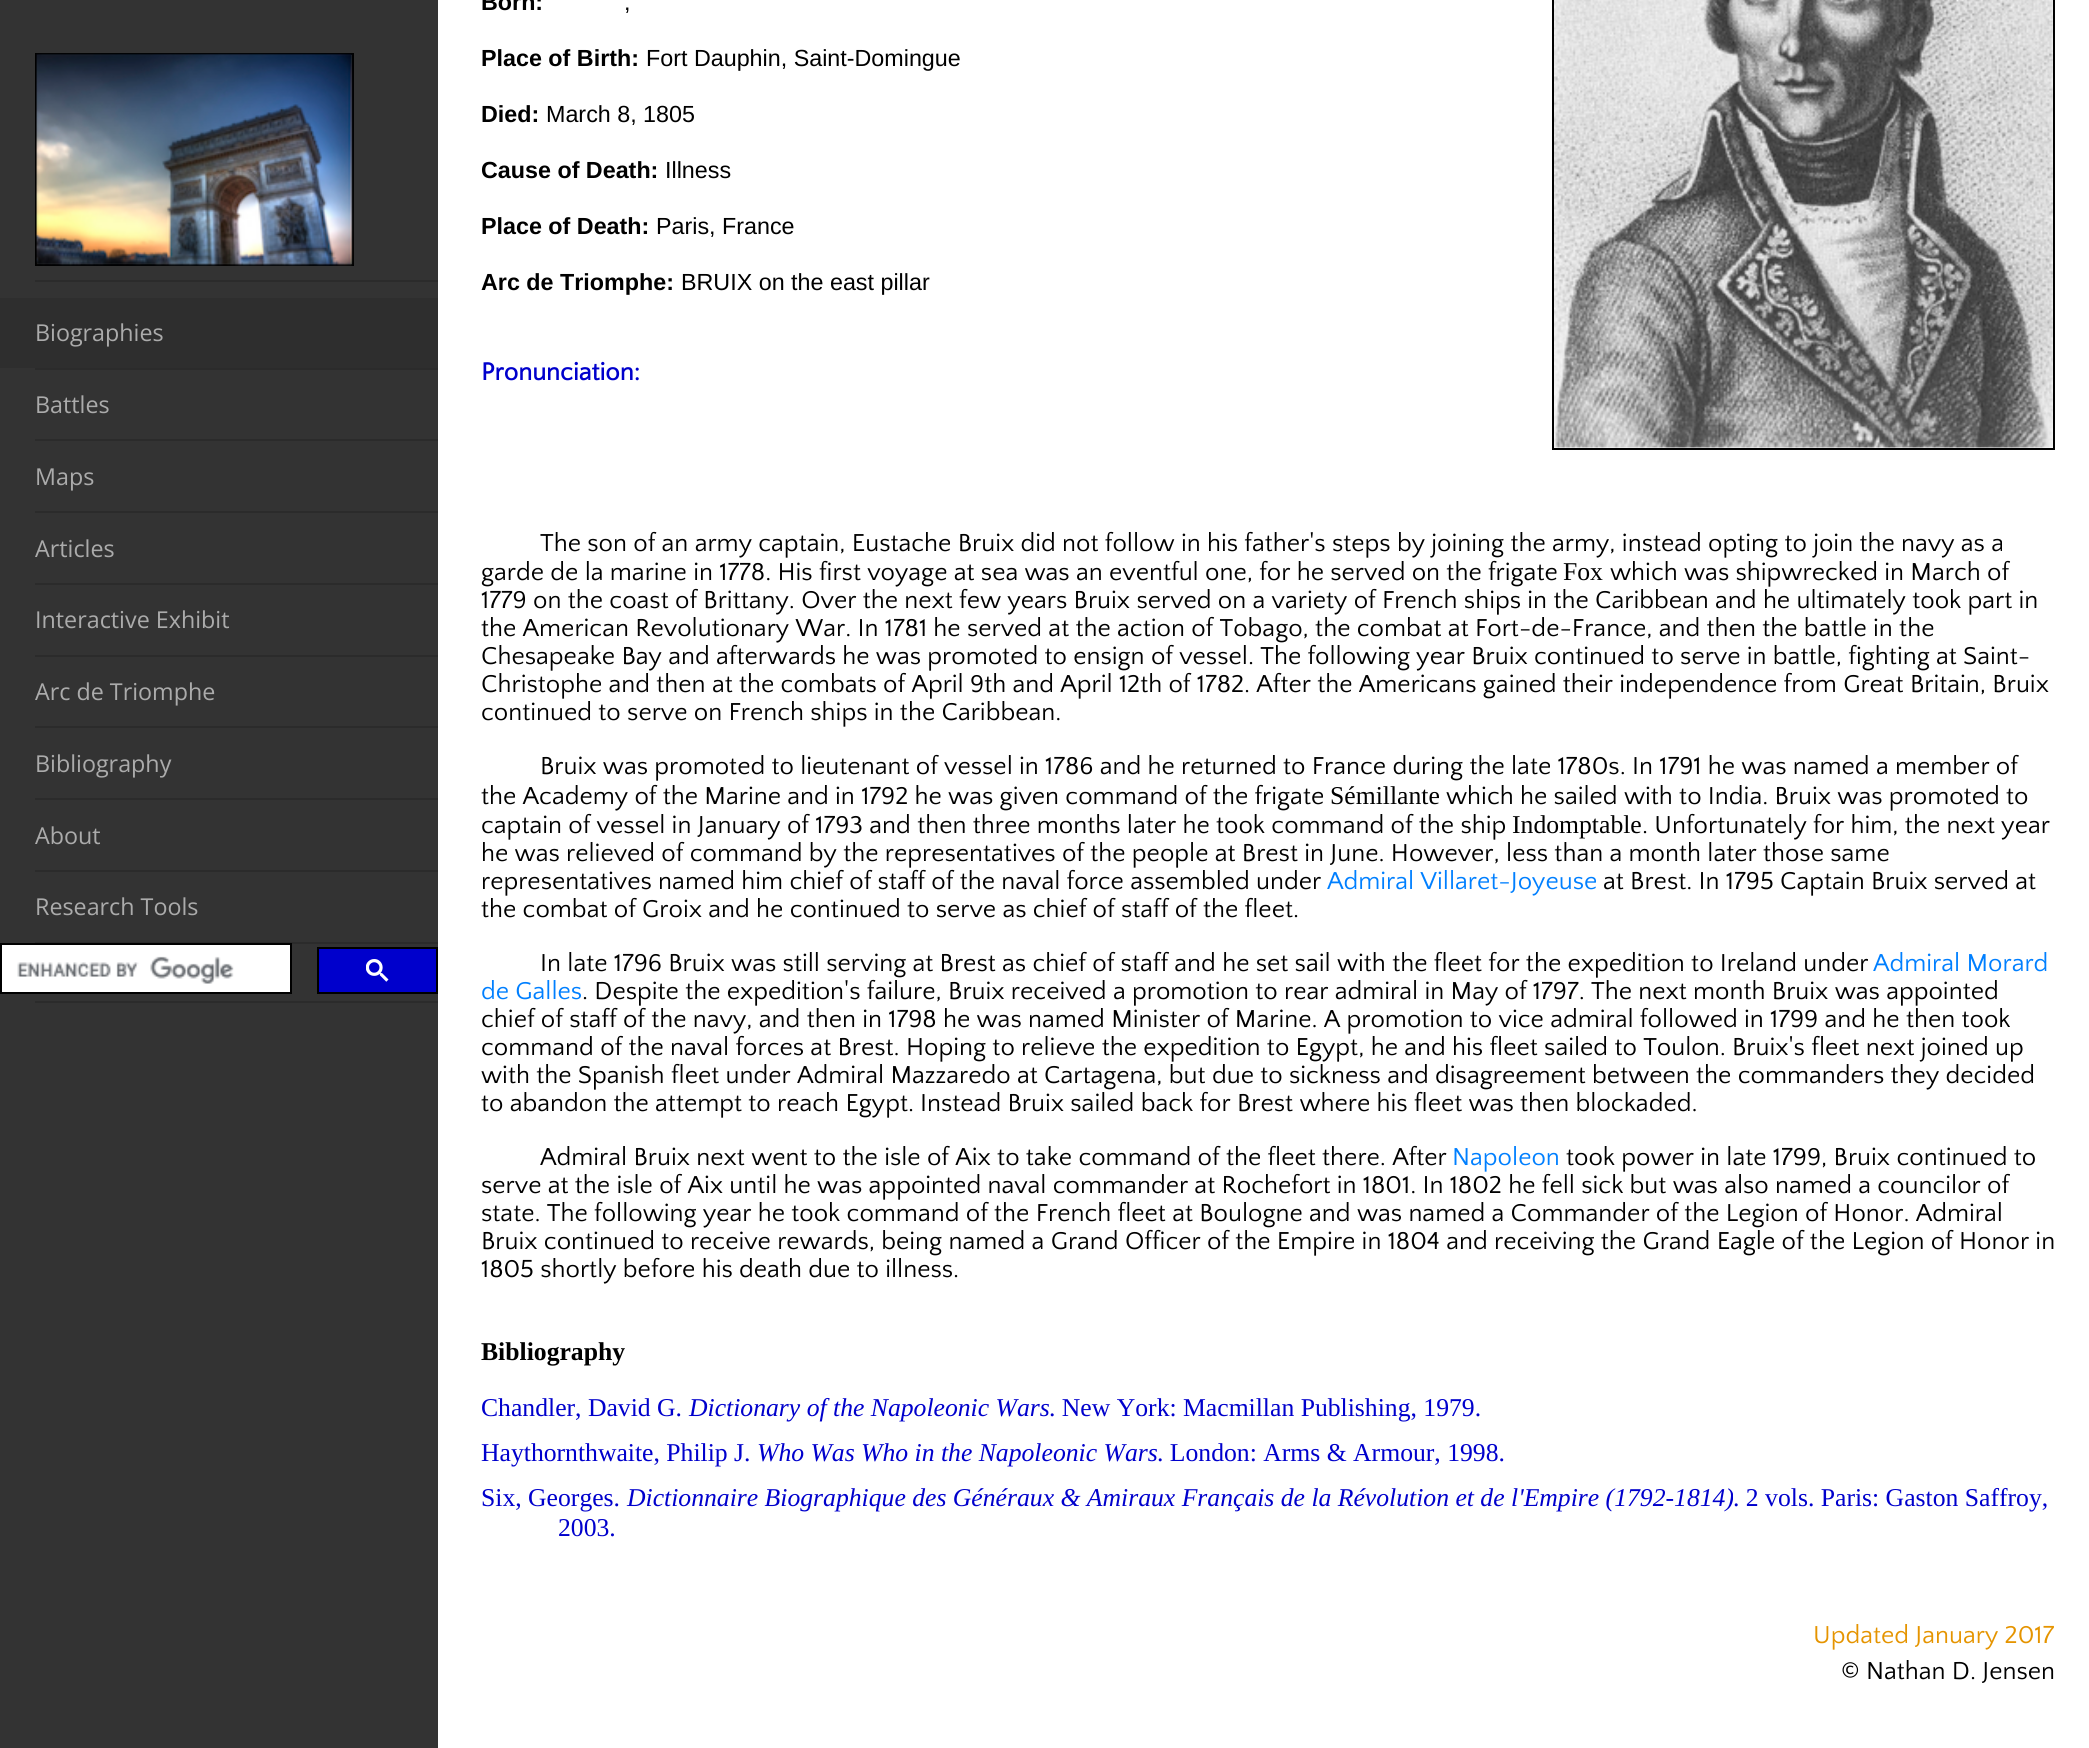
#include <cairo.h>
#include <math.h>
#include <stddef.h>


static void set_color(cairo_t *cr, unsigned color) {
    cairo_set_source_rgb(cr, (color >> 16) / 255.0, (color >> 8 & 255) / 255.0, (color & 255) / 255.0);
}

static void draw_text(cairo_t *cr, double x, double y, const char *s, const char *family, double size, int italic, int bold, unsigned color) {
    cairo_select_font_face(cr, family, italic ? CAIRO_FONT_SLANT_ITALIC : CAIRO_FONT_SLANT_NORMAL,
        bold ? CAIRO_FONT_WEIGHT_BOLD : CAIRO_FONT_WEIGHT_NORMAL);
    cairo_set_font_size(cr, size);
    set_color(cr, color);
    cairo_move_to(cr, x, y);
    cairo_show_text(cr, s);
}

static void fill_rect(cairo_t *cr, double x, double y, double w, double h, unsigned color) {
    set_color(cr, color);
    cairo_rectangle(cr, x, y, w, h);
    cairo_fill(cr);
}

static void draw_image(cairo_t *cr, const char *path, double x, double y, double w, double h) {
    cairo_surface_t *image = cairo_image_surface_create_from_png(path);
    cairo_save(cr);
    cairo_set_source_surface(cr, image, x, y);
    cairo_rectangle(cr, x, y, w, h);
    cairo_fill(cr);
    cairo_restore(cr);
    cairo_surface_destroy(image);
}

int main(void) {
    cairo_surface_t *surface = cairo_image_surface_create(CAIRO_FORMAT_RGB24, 2089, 1748);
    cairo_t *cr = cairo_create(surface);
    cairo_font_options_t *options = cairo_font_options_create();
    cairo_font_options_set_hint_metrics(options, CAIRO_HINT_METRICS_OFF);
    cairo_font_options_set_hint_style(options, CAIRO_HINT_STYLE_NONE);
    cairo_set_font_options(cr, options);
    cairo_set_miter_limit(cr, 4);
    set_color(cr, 0xFFFFFF);
    cairo_paint(cr);
    fill_rect(cr, 0, 0, 438, 1748, 0x333333);
    cairo_rectangle(cr, 36, 54, 317, 211);
    set_color(cr, 0x000000);
    cairo_stroke(cr);
    draw_image(cr, "assets/img1.png", 36, 53, 318, 213);
    fill_rect(cr, 35, 280, 403, 2, 0x2B2B2B);
    fill_rect(cr, 0, 298, 438, 70, 0x2E2E2E);
    draw_text(cr, 35, 341, "Biographies", "Open Sans", 23.3, 0, 0, 0xABABAB);
    fill_rect(cr, 35, 368, 403, 2, 0x2B2B2B);
    draw_text(cr, 35, 413, "Battles", "Open Sans", 23.3, 0, 0, 0xABABAB);
    fill_rect(cr, 35, 439, 403, 2, 0x2B2B2B);
    draw_text(cr, 35, 485, "Maps", "Open Sans", 23.3, 0, 0, 0xABABAB);
    fill_rect(cr, 35, 511, 403, 2, 0x2B2B2B);
    draw_text(cr, 35, 557, "Articles", "Open Sans", 23.3, 0, 0, 0xABABAB);
    fill_rect(cr, 35, 583, 403, 2, 0x2B2B2B);
    draw_text(cr, 35, 628, "Interactive Exhibit", "Open Sans", 23.3, 0, 0, 0xABABAB);
    fill_rect(cr, 35, 655, 403, 2, 0x2B2B2B);
    draw_text(cr, 35, 700, "Arc de Triomphe", "Open Sans", 23.3, 0, 0, 0xABABAB);
    fill_rect(cr, 35, 726, 403, 2, 0x2B2B2B);
    draw_text(cr, 35, 772, "Bibliography", "Open Sans", 23.3, 0, 0, 0xABABAB);
    fill_rect(cr, 35, 798, 403, 2, 0x2B2B2B);
    draw_text(cr, 35, 844, "About", "Open Sans", 23.3, 0, 0, 0xABABAB);
    fill_rect(cr, 35, 870, 403, 2, 0x2B2B2B);
    draw_text(cr, 35, 915, "Research Tools", "Open Sans", 23.3, 0, 0, 0xABABAB);
    fill_rect(cr, 35, 942, 403, 2, 0x2B2B2B);
    set_color(cr, 0xFFFFFF);
    cairo_rectangle(cr, 1, 944, 290, 49);
    cairo_fill_preserve(cr);
    set_color(cr, 0x000000);
    cairo_stroke(cr);
    draw_image(cr, "assets/img2.png", 17, 956, 217, 28);
    set_color(cr, 0x0000CC);
    cairo_rectangle(cr, 318, 948, 119, 45);
    cairo_fill_preserve(cr);
    set_color(cr, 0x000000);
    cairo_stroke(cr);
    draw_image(cr, "assets/img3.png", 366, 959, 23, 23);
    fill_rect(cr, 35, 1001, 403, 2, 0x2B2B2B);
    draw_text(cr, 481, 10, "Born:", "Liberation Sans", 23.3, 0, 1, 0x000000);
    draw_text(cr, 624, 10, ",", "Liberation Sans", 23.3, 0, 0, 0x000000);
    cairo_rectangle(cr, 1553, -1, 501, 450);
    cairo_stroke(cr);
    draw_image(cr, "assets/img4.png", 1554, 0, 499, 448);
    draw_text(cr, 481, 66, "Place of Birth:", "Liberation Sans", 23.3, 0, 1, 0x000000);
    draw_text(cr, 646, 66, "Fort Dauphin, Saint-Domingue", "Liberation Sans", 23.3, 0, 0, 0x000000);
    draw_text(cr, 481, 122, "Died:", "Liberation Sans", 23.3, 0, 1, 0x000000);
    draw_text(cr, 546, 122, "March 8, 1805", "Liberation Sans", 23.3, 0, 0, 0x000000);
    draw_text(cr, 481, 178, "Cause of Death:", "Liberation Sans", 23.3, 0, 1, 0x000000);
    draw_text(cr, 665, 178, "Illness", "Liberation Sans", 23.3, 0, 0, 0x000000);
    draw_text(cr, 481, 234, "Place of Death:", "Liberation Sans", 23.3, 0, 1, 0x000000);
    draw_text(cr, 656, 234, "Paris, France", "Liberation Sans", 23.3, 0, 0, 0x000000);
    draw_text(cr, 481, 290, "Arc de Triomphe:", "Liberation Sans", 23.3, 0, 1, 0x000000);
    draw_text(cr, 681, 290, "BRUIX on the east pillar", "Liberation Sans", 23.3, 0, 0, 0x000000);
    draw_text(cr, 481, 380, "Pronunciation:", "Quattrocento Sans", 25.67, 0, 1, 0x0000CC);
    draw_text(cr, 540, 551, "The son of an army captain, Eustache Bruix did not follow in his father's steps by joining the army, instead opting to join the navy as a", "Quattrocento Sans", 25.67, 0, 0, 0x000000);
    draw_text(cr, 481, 580, "garde de la marine in 1778. His first voyage at sea was an eventful one, for he served on the frigate", "Quattrocento Sans", 25.67, 0, 0, 0x000000);
    draw_text(cr, 1563, 580, "Fox", "Liberation Serif", 25.67, 0, 0, 0x000000);
    draw_text(cr, 1610, 580, "which was shipwrecked in March of", "Quattrocento Sans", 25.67, 0, 0, 0x000000);
    draw_text(cr, 481, 608, "1779 on the coast of Brittany. Over the next few years Bruix served on a variety of French ships in the Caribbean and he ultimately took part in", "Quattrocento Sans", 25.67, 0, 0, 0x000000);
    draw_text(cr, 481, 636, "the American Revolutionary War. In 1781 he served at the action of Tobago, the combat at Fort-de-France, and then the battle in the", "Quattrocento Sans", 25.67, 0, 0, 0x000000);
    draw_text(cr, 481, 664, "Chesapeake Bay and afterwards he was promoted to ensign of vessel. The following year Bruix continued to serve in battle, fighting at Saint-", "Quattrocento Sans", 25.67, 0, 0, 0x000000);
    draw_text(cr, 481, 692, "Christophe and then at the combats of April 9th and April 12th of 1782. After the Americans gained their independence from Great Britain, Bruix", "Quattrocento Sans", 25.67, 0, 0, 0x000000);
    draw_text(cr, 481, 720, "continued to serve on French ships in the Caribbean.", "Quattrocento Sans", 25.67, 0, 0, 0x000000);
    draw_text(cr, 540, 774, "Bruix was promoted to lieutenant of vessel in 1786 and he returned to France during the late 1780s. In 1791 he was named a member of", "Quattrocento Sans", 25.67, 0, 0, 0x000000);
    draw_text(cr, 481, 804, "the Academy of the Marine and in 1792 he was given command of the frigate", "Quattrocento Sans", 25.67, 0, 0, 0x000000);
    draw_text(cr, 1330, 804, "Sémillante", "Liberation Serif", 25.67, 0, 0, 0x000000);
    draw_text(cr, 1446, 804, "which he sailed with to India. Bruix was promoted to", "Quattrocento Sans", 25.67, 0, 0, 0x000000);
    draw_text(cr, 481, 833, "captain of vessel in January of 1793 and then three months later he took command of the ship", "Quattrocento Sans", 25.67, 0, 0, 0x000000);
    draw_text(cr, 1512, 833, "Indomptable", "Liberation Serif", 25.67, 0, 0, 0x000000);
    draw_text(cr, 1642, 833, ". Unfortunately for him, the next year", "Quattrocento Sans", 25.67, 0, 0, 0x000000);
    draw_text(cr, 481, 861, "he was relieved of command by the representatives of the people at Brest in June. However, less than a month later those same", "Quattrocento Sans", 25.67, 0, 0, 0x000000);
    draw_text(cr, 481, 889, "representatives named him chief of staff of the naval force assembled under", "Quattrocento Sans", 25.67, 0, 0, 0x000000);
    draw_text(cr, 1327, 889, "Admiral Villaret-Joyeuse", "Quattrocento Sans", 25.67, 0, 0, 0x007FFF);
    draw_text(cr, 1603, 889, "at Brest. In 1795 Captain Bruix served at", "Quattrocento Sans", 25.67, 0, 0, 0x000000);
    draw_text(cr, 481, 917, "the combat of Groix and he continued to serve as chief of staff of the fleet.", "Quattrocento Sans", 25.67, 0, 0, 0x000000);
    draw_text(cr, 540, 971, "In late 1796 Bruix was still serving at Brest as chief of staff and he set sail with the fleet for the expedition to Ireland under", "Quattrocento Sans", 25.67, 0, 0, 0x000000);
    draw_text(cr, 1873, 971, "Admiral Morard", "Quattrocento Sans", 25.67, 0, 0, 0x007FFF);
    draw_text(cr, 481, 999, "de Galles", "Quattrocento Sans", 25.67, 0, 0, 0x007FFF);
    draw_text(cr, 582, 999, ". Despite the expedition's failure, Bruix received a promotion to rear admiral in May of 1797. The next month Bruix was appointed", "Quattrocento Sans", 25.67, 0, 0, 0x000000);
    draw_text(cr, 481, 1027, "chief of staff of the navy, and then in 1798 he was named Minister of Marine. A promotion to vice admiral followed in 1799 and he then took", "Quattrocento Sans", 25.67, 0, 0, 0x000000);
    draw_text(cr, 481, 1055, "command of the naval forces at Brest.", "Quattrocento Sans", 25.67, 0, 0, 0x000000);
    draw_text(cr, 906, 1055, "Hoping to relieve the expedition to Egypt, he and his fleet sailed to Toulon. Bruix's fleet next joined up", "Quattrocento Sans", 25.67, 0, 0, 0x000000);
    draw_text(cr, 481, 1083, "with the Spanish fleet under Admiral Mazzaredo at Cartagena, but due to sickness and disagreement between the commanders they decided", "Quattrocento Sans", 25.67, 0, 0, 0x000000);
    draw_text(cr, 481, 1111, "to abandon the attempt to reach Egypt.", "Quattrocento Sans", 25.67, 0, 0, 0x000000);
    draw_text(cr, 920, 1111, "Instead Bruix sailed back for Brest where his fleet was then blockaded.", "Quattrocento Sans", 25.67, 0, 0, 0x000000);
    draw_text(cr, 540, 1165, "Admiral Bruix next went to the isle of Aix to take command of the fleet there. After", "Quattrocento Sans", 25.67, 0, 0, 0x000000);
    draw_text(cr, 1452, 1165, "Napoleon", "Quattrocento Sans", 25.67, 0, 0, 0x007FFF);
    draw_text(cr, 1566, 1165, "took power in late 1799, Bruix continued to", "Quattrocento Sans", 25.67, 0, 0, 0x000000);
    draw_text(cr, 481, 1193, "serve at the isle of Aix until he was appointed naval commander at Rochefort in 1801. In 1802 he fell sick but was also named a councilor of", "Quattrocento Sans", 25.67, 0, 0, 0x000000);
    draw_text(cr, 481, 1221, "state. The following year he took command of the French fleet at Boulogne and was named a Commander of the Legion of Honor. Admiral", "Quattrocento Sans", 25.67, 0, 0, 0x000000);
    draw_text(cr, 481, 1249, "Bruix continued to receive rewards, being named a Grand Officer of the Empire in 1804 and receiving the Grand Eagle of the Legion of Honor in", "Quattrocento Sans", 25.67, 0, 0, 0x000000);
    draw_text(cr, 481, 1277, "1805 shortly before his death due to illness.", "Quattrocento Sans", 25.67, 0, 0, 0x000000);
    draw_text(cr, 481, 1360, "Bibliography", "Liberation Serif", 25.67, 0, 1, 0x000000);
    draw_text(cr, 481, 1416, "Chandler, David G.", "Liberation Serif", 25.67, 0, 0, 0x0000CC);
    draw_text(cr, 689, 1416, "Dictionary of the Napoleonic Wars", "Liberation Serif", 25.67, 1, 0, 0x0000CC);
    draw_text(cr, 1049, 1416, ". New York: Macmillan Publishing, 1979.", "Liberation Serif", 25.67, 0, 0, 0x0000CC);
    draw_text(cr, 481, 1461, "Haythornthwaite, Philip J.", "Liberation Serif", 25.67, 0, 0, 0x0000CC);
    draw_text(cr, 757, 1461, "Who Was Who in the Napoleonic Wars", "Liberation Serif", 25.67, 1, 0, 0x0000CC);
    draw_text(cr, 1157, 1461, ". London: Arms & Armour, 1998.", "Liberation Serif", 25.67, 0, 0, 0x0000CC);
    draw_text(cr, 481, 1506, "Six, Georges.", "Liberation Serif", 25.67, 0, 0, 0x0000CC);
    draw_text(cr, 627, 1506, "Dictionnaire Biographique des Généraux & Amiraux Français de la Révolution et de l'Empire (1792-1814)", "Liberation Serif", 25.67, 1, 0, 0x0000CC);
    draw_text(cr, 1733, 1506, ". 2 vols. Paris: Gaston Saffroy,", "Liberation Serif", 25.67, 0, 0, 0x0000CC);
    draw_text(cr, 558, 1536, "2003.", "Liberation Serif", 25.67, 0, 0, 0x0000CC);
    draw_text(cr, 1813, 1643, "Updated January 2017", "Quattrocento Sans", 25.67, 0, 0, 0xE59400);
    draw_text(cr, 1841, 1679, "© Nathan D. Jensen", "Quattrocento Sans", 25.67, 0, 0, 0x000000);
    cairo_surface_write_to_png(surface, "output.png");
    cairo_font_options_destroy(options);
    cairo_destroy(cr);
    cairo_surface_destroy(surface);
    return 0;
}
